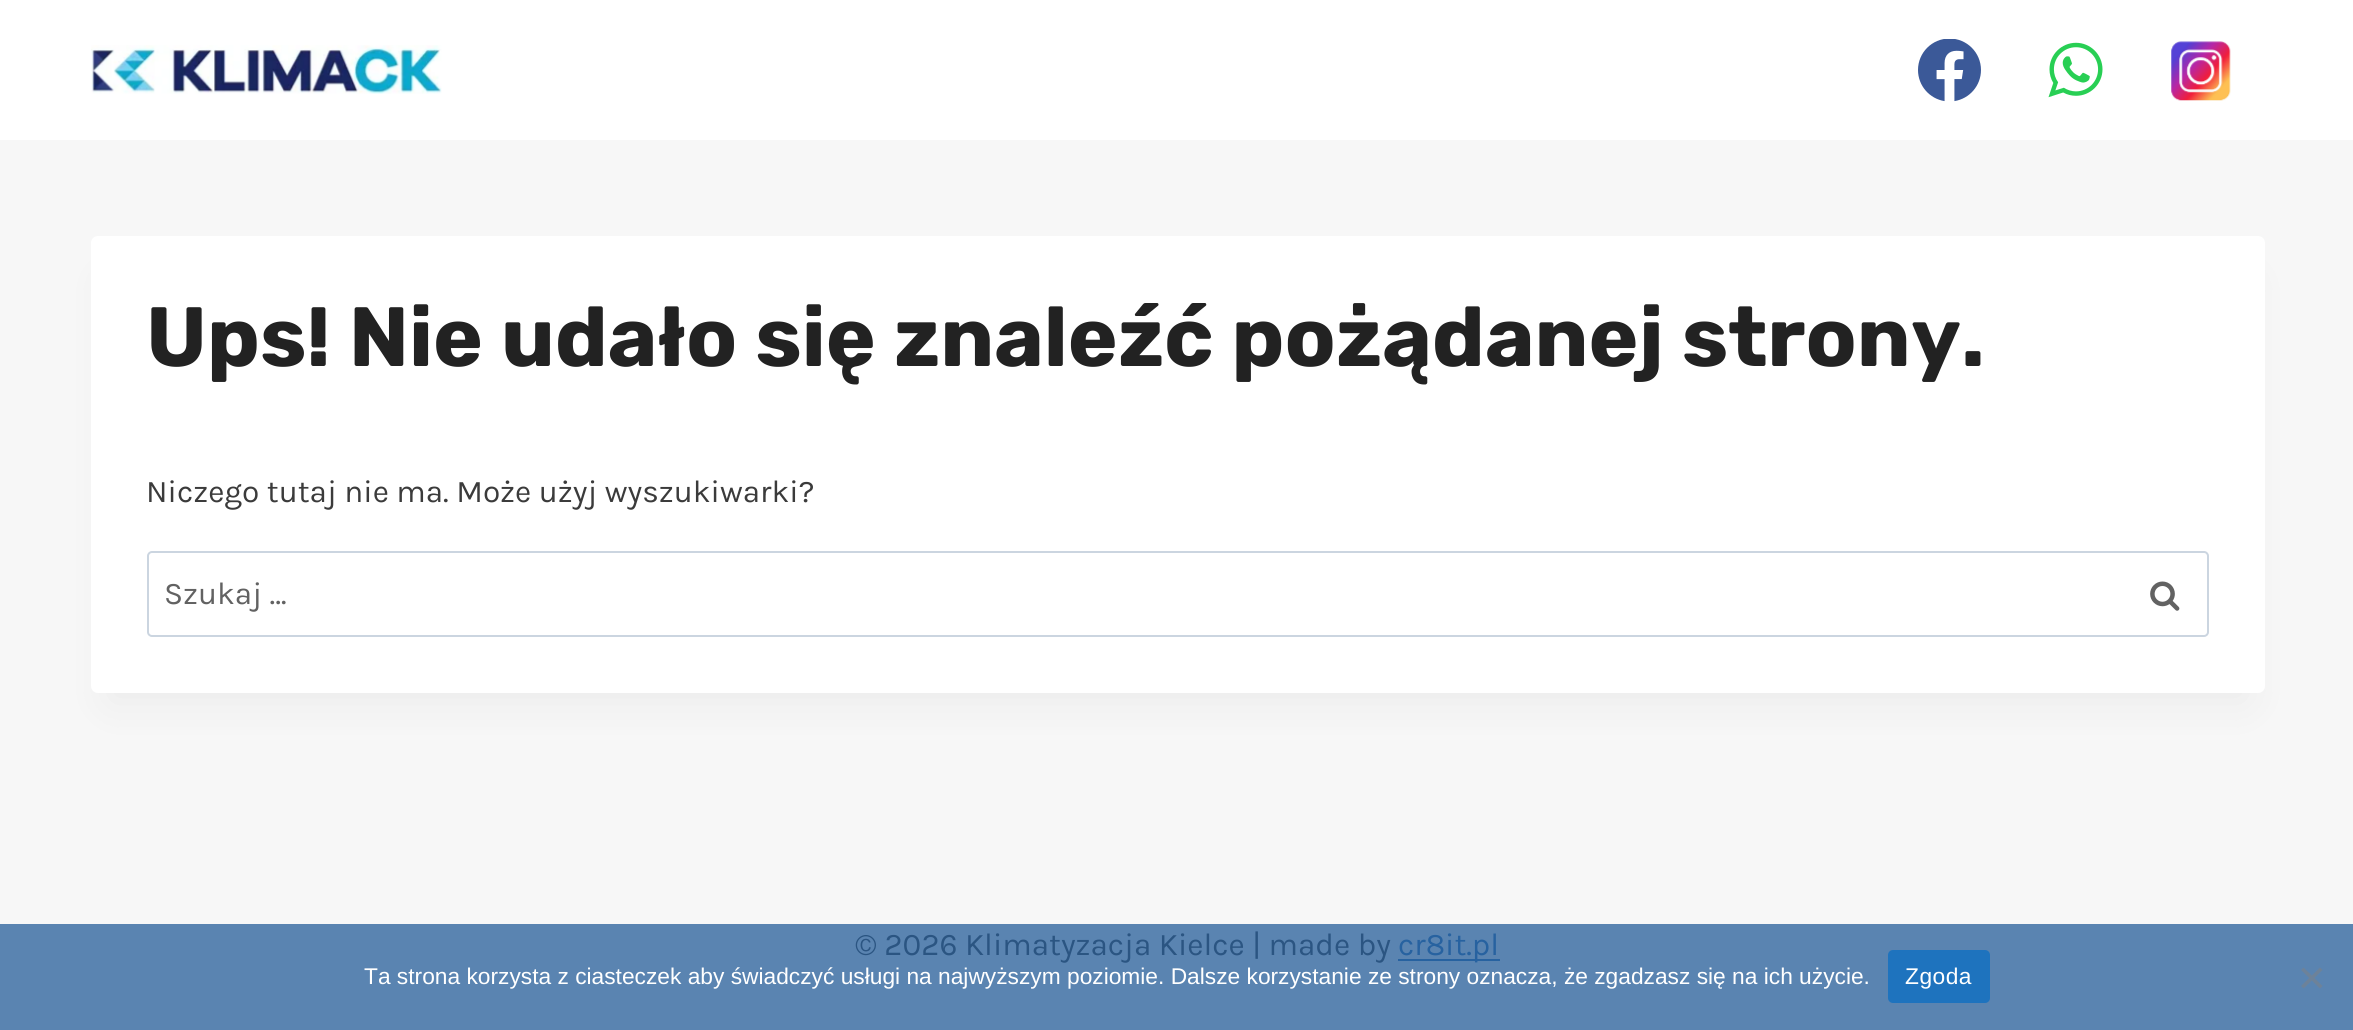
#include <cairo.h>
#include <math.h>
#include <stddef.h>


static void set_color(cairo_t *cr, unsigned color) {
    cairo_set_source_rgb(cr, (color >> 16) / 255.0, (color >> 8 & 255) / 255.0, (color & 255) / 255.0);
}

static void draw_text(cairo_t *cr, double x, double y, const char *s, const char *family, double size, int italic, int bold, unsigned color) {
    cairo_select_font_face(cr, family, italic ? CAIRO_FONT_SLANT_ITALIC : CAIRO_FONT_SLANT_NORMAL,
        bold ? CAIRO_FONT_WEIGHT_BOLD : CAIRO_FONT_WEIGHT_NORMAL);
    cairo_set_font_size(cr, size);
    set_color(cr, color);
    cairo_move_to(cr, x, y);
    cairo_show_text(cr, s);
}

static void draw_spaced(cairo_t *cr, double x, double y, const char *s, double letter, double word) {
    cairo_move_to(cr, x, y);
    while (*s) {
        char ch[5] = {0};
        int n = 0;
        do ch[n++] = *s++; while ((*s & 0xC0) == 0x80);
        cairo_show_text(cr, ch);
        cairo_rel_move_to(cr, letter + word * (*ch == ' '), 0);
    }
}

static void fill_rect(cairo_t *cr, double x, double y, double w, double h, unsigned color) {
    set_color(cr, color);
    cairo_rectangle(cr, x, y, w, h);
    cairo_fill(cr);
}

static void rounded_rect(cairo_t *cr, double x, double y, double w, double h, double r) {
    cairo_new_sub_path(cr);
    cairo_arc(cr, x + w - r, y + h - r, r, 0, M_PI / 2);
    cairo_arc(cr, x + r, y + h - r, r, M_PI / 2, M_PI);
    cairo_arc(cr, x + r, y + r, r, M_PI, 1.5 * M_PI);
    cairo_arc(cr, x + w - r, y + r, r, 1.5 * M_PI, 2 * M_PI);
    cairo_close_path(cr);
}

static void draw_shadow(cairo_t *cr, double x, double y, double w, double h, double r, double blur, double alpha) {
    cairo_push_group_with_content(cr, CAIRO_CONTENT_ALPHA);
    cairo_set_operator(cr, CAIRO_OPERATOR_SOURCE);
    for (int i = 15; i >= -15 && fmin(w, h) + blur * i / 3 > 0; i -= 2) {
        double e = blur * i / 6;
        cairo_set_source_rgba(cr, 0, 0, 0, alpha * erfc((i - 1) / 8.5) / 2);
        rounded_rect(cr, x - e, y - e, w + 2 * e, h + 2 * e, fmax(0, fmin(r + e + blur * .6, fmin(w, h) / 2 + e)));
        cairo_fill(cr);
    }
    cairo_pattern_t *soft = cairo_pop_group(cr);
    cairo_mask(cr, soft);
    cairo_pattern_destroy(soft);
}

static void draw_image(cairo_t *cr, const char *path, double x, double y, double w, double h) {
    cairo_surface_t *image = cairo_image_surface_create_from_png(path);
    cairo_save(cr);
    cairo_set_source_surface(cr, image, x, y);
    cairo_rectangle(cr, x, y, w, h);
    cairo_fill(cr);
    cairo_restore(cr);
    cairo_surface_destroy(image);
}

int main(void) {
    cairo_surface_t *surface = cairo_image_surface_create(CAIRO_FORMAT_RGB24, 2353, 1030);
    cairo_t *cr = cairo_create(surface);
    cairo_font_options_t *options = cairo_font_options_create();
    cairo_font_options_set_hint_metrics(options, CAIRO_HINT_METRICS_OFF);
    cairo_font_options_set_hint_style(options, CAIRO_HINT_STYLE_NONE);
    cairo_set_font_options(cr, options);
    cairo_set_miter_limit(cr, 4);
    set_color(cr, 0xF7F7F7);
    cairo_paint(cr);
    fill_rect(cr, 0, 924, 2353, 106, 0x5A84B1);
    fill_rect(cr, 0, 0, 2353, 140, 0xFFFFFF);
    draw_image(cr, "assets/img1.png", 91, 45, 351, 49);
    draw_image(cr, "assets/img2.png", 1918, 39, 63, 63);
    draw_image(cr, "assets/img3.png", 2048, 42, 55, 56);
    draw_image(cr, "assets/img4.png", 2171, 41, 60, 60);
    set_color(cr, 0x000000);
    draw_shadow(cr, 109, 280, 2138, 422, 0, 22, 0.05);
    set_color(cr, 0xFFFFFF);
    rounded_rect(cr, 91, 236, 2174, 457, 7);
    cairo_fill(cr);
    draw_text(cr, 146, 366, "Ups! Nie udało się znaleźć pożądanej strony.", "Rubik", 84, 0, 1, 0x222222);
    draw_text(cr, 146, 502, "Niczego tutaj nie ma. Może użyj wyszukiwarki?", "Karla", 31.5, 0, 0, 0x3B3B3B);
    rounded_rect(cr, 148, 552, 2060, 84, 4);
    set_color(cr, 0xCBD5E0);
    cairo_stroke(cr);
    draw_text(cr, 164, 604, "Szukaj …", "Karla", 31.5, 0, 0, 0x626262);
    draw_image(cr, "assets/img5.png", 2150, 581, 30, 30);
    draw_text(cr, 855, 955, "© 2026 Klimatyzacja Kielce | made by", "Karla", 31.5, 0, 0, 0x2B5582);
    fill_rect(cr, 1398, 959, 102, 2, 0x2762A0);
    draw_text(cr, 1398, 955, "cr8it.pl", "Karla", 31.5, 0, 0, 0x2762A0);
    draw_text(cr, 364, 984, "Ta strona korzysta z ciasteczek aby świadczyć usługi na najwyższym poziomie. Dalsze korzystanie ze strony oznacza, że zgadzasz się na ich użycie.", "Liberation Sans", 22.75, 0, 0, 0xFFFFFF);
    set_color(cr, 0x1E73BE);
    rounded_rect(cr, 1888, 950, 102, 53, 5);
    cairo_fill(cr);
    set_color(cr, 0xFFFFFF);
    draw_spaced(cr, 1905, 984, "Zgoda", 0.5, 0);
    set_color(cr, 0x6D8299);
    cairo_new_path(cr);
    cairo_move_to(cr, 2320, 967.5);
    cairo_line_to(cr, 2322.5, 970);
    cairo_line_to(cr, 2303.5, 988.5);
    cairo_line_to(cr, 2301, 986);
    cairo_close_path(cr);
    cairo_fill(cr);
    cairo_new_path(cr);
    cairo_move_to(cr, 2301, 970);
    cairo_line_to(cr, 2303.5, 967.5);
    cairo_line_to(cr, 2322.5, 986);
    cairo_line_to(cr, 2320, 988.5);
    cairo_close_path(cr);
    cairo_fill(cr);
    cairo_surface_write_to_png(surface, "output.png");
    cairo_font_options_destroy(options);
    cairo_destroy(cr);
    cairo_surface_destroy(surface);
    return 0;
}
